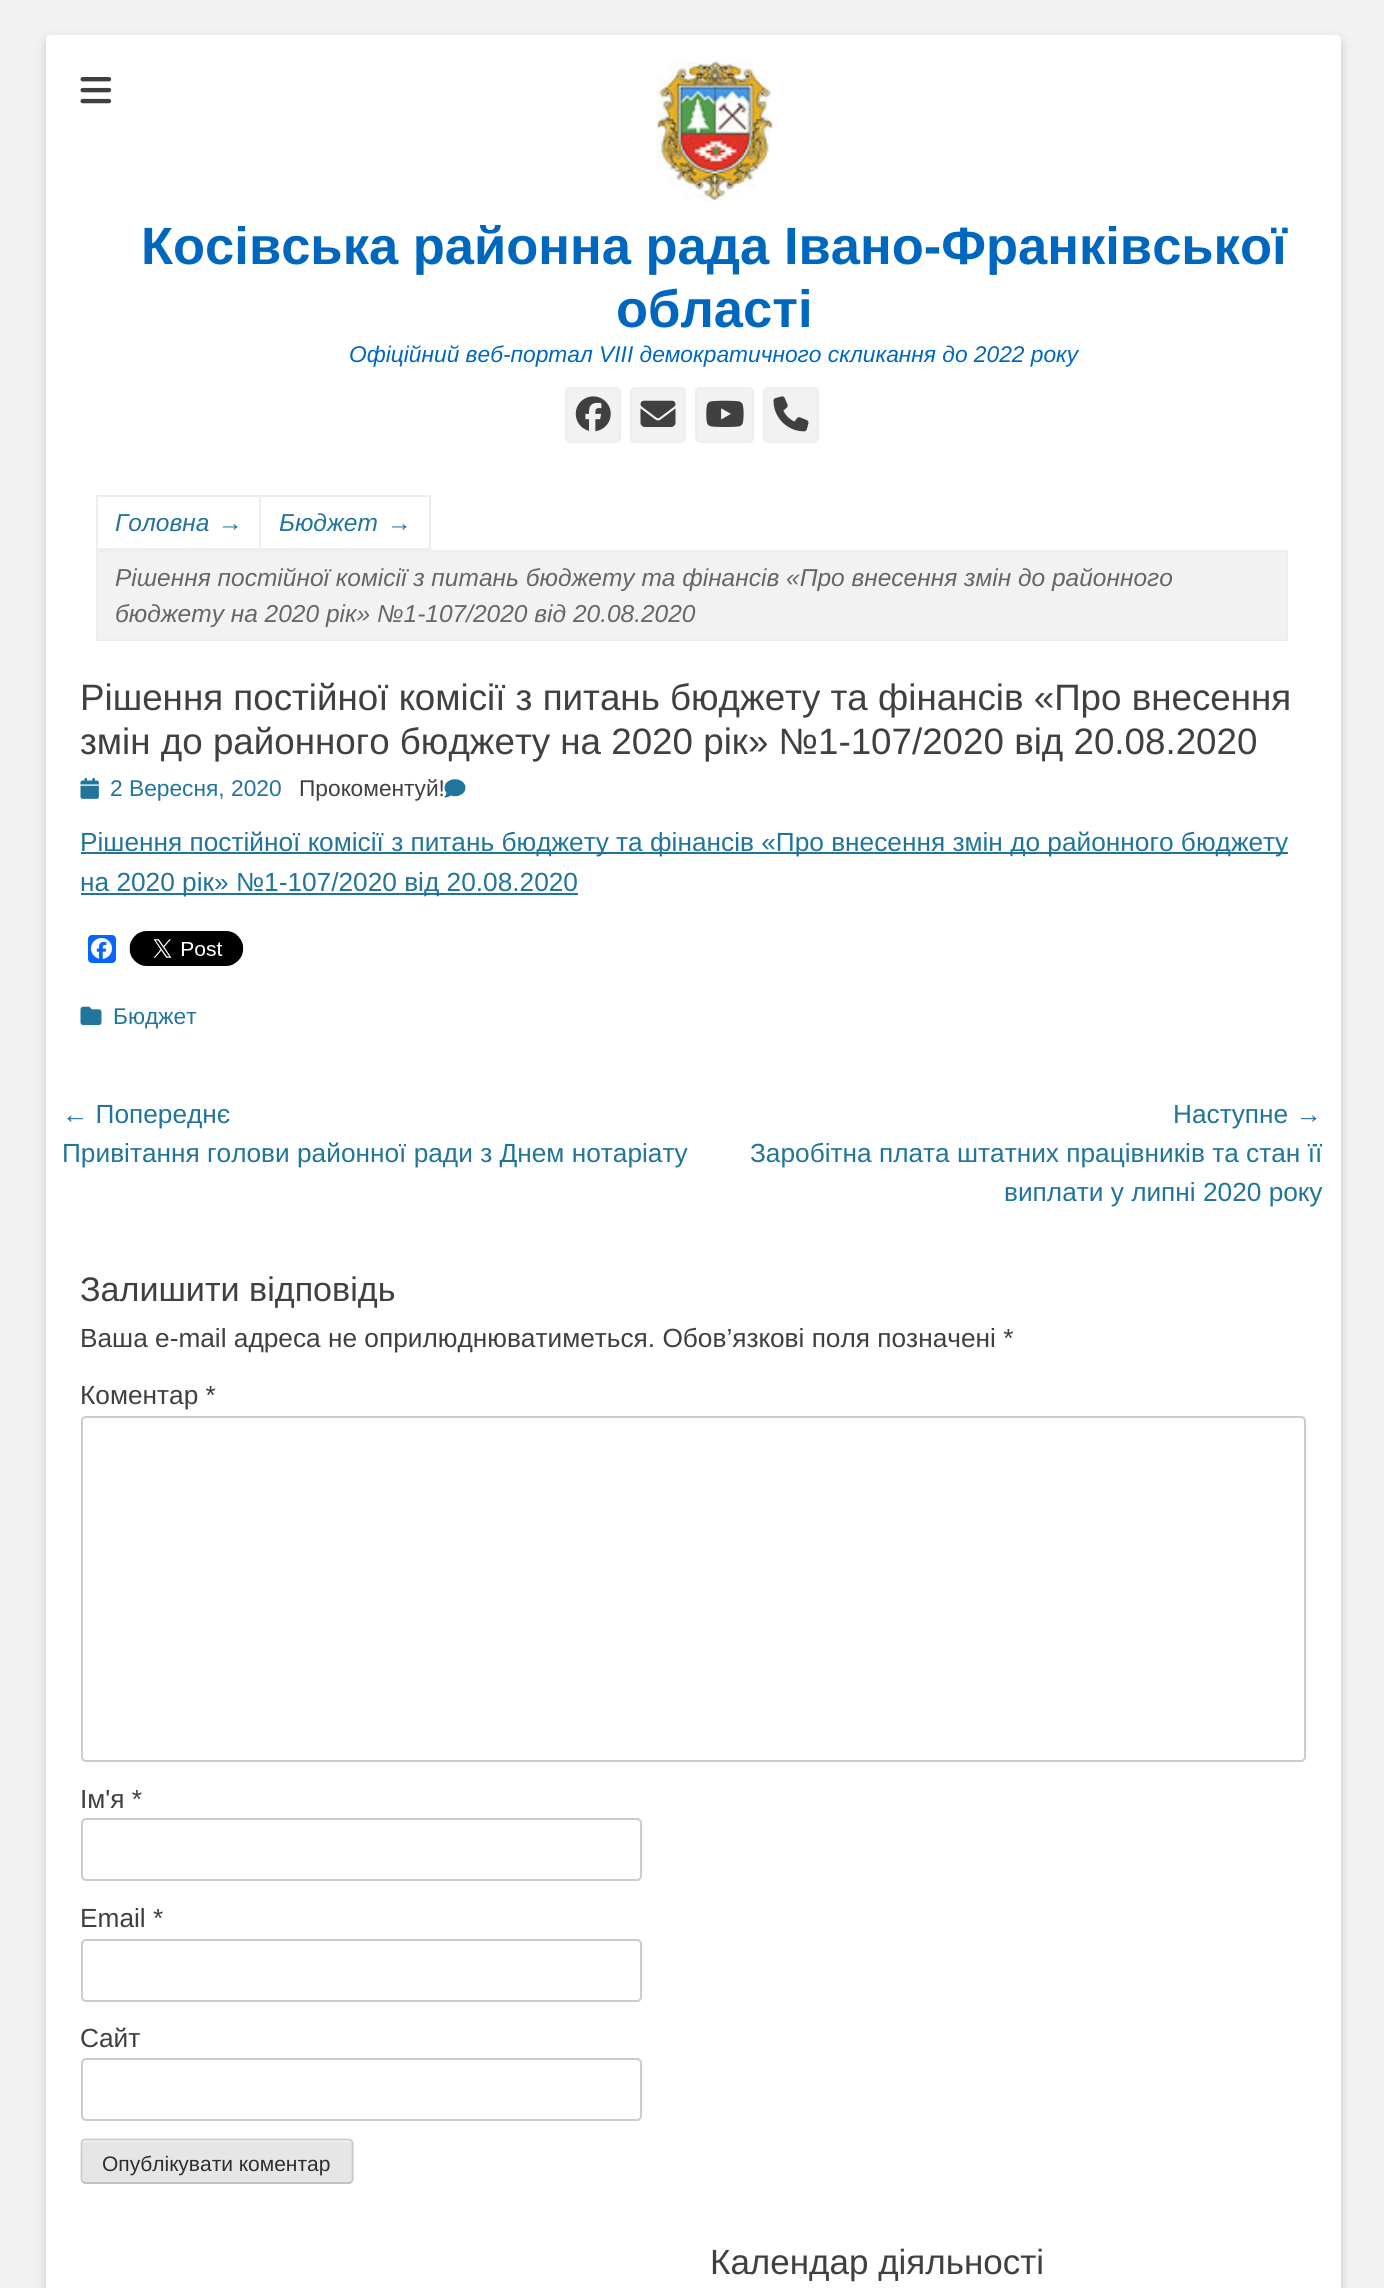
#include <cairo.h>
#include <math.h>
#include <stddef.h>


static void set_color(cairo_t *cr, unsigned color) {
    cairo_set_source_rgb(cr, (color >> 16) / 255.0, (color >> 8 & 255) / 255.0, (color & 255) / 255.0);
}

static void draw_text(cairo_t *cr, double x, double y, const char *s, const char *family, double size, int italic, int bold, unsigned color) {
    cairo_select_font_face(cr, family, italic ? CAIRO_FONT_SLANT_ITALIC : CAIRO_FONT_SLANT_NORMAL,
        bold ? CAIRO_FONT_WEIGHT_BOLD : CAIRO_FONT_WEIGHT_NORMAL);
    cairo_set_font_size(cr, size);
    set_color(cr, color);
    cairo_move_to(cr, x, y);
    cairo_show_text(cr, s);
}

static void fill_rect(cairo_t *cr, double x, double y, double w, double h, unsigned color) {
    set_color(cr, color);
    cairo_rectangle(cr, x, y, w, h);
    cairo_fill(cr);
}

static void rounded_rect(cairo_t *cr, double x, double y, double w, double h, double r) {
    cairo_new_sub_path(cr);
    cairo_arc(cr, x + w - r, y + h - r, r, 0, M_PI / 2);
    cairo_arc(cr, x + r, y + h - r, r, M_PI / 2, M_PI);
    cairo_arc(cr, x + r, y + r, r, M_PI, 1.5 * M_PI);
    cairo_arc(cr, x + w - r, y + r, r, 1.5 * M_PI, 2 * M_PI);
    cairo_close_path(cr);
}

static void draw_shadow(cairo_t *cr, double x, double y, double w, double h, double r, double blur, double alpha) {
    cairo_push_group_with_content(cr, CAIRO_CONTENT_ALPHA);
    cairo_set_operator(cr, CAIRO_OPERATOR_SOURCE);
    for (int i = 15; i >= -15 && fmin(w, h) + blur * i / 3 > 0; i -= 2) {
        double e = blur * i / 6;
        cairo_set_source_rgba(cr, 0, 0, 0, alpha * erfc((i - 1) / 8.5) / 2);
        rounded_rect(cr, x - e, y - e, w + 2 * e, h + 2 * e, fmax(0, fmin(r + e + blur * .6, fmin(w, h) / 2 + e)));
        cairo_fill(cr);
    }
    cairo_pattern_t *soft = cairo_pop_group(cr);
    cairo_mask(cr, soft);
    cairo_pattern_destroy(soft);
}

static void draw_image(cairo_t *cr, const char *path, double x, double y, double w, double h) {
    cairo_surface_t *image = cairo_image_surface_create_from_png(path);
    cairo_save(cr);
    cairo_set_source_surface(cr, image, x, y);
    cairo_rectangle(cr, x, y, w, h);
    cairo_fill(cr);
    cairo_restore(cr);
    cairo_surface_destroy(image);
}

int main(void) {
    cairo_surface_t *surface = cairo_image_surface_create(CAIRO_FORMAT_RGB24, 1384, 2288);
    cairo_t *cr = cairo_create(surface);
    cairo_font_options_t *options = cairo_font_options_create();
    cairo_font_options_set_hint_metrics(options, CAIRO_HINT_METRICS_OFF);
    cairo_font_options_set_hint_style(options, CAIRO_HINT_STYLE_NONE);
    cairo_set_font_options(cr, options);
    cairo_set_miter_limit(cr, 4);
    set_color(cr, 0xF2F2F2);
    cairo_paint(cr);
    set_color(cr, 0x646464);
    draw_shadow(cr, 46, 39, 1295, 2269, 5, 5, 0.3);
    set_color(cr, 0xFFFFFF);
    rounded_rect(cr, 46, 35, 1295, 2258, 5);
    cairo_fill(cr);
    draw_image(cr, "assets/img1.png", 80, 77, 32, 27);
    draw_image(cr, "assets/img2.png", 656, 61, 118, 140);
    draw_text(cr, 141, 264, "Косівська районна рада Івано-Франківської", "Liberation Sans", 52.5, 0, 1, 0x0067BF);
    draw_text(cr, 616, 327, "області", "Liberation Sans", 52.5, 0, 1, 0x0067BF);
    draw_text(cr, 349, 362, "Офіційний веб-портал VIII демократичного скликання до 2022 року", "Liberation Sans", 22.75, 1, 0, 0x0067BF);
    set_color(cr, 0xF2F2F2);
    rounded_rect(cr, 566, 388, 54, 54, 4);
    cairo_fill_preserve(cr);
    set_color(cr, 0xEEEEEE);
    cairo_stroke(cr);
    draw_image(cr, "assets/img3.png", 575, 396, 36, 36);
    set_color(cr, 0xF2F2F2);
    rounded_rect(cr, 631, 388, 54, 54, 4);
    cairo_fill_preserve(cr);
    set_color(cr, 0xEEEEEE);
    cairo_stroke(cr);
    draw_image(cr, "assets/img4.png", 640, 400, 36, 27);
    set_color(cr, 0xF2F2F2);
    rounded_rect(cr, 696, 388, 57, 54, 4);
    cairo_fill_preserve(cr);
    set_color(cr, 0xEEEEEE);
    cairo_stroke(cr);
    draw_image(cr, "assets/img5.png", 706, 400, 38, 27);
    set_color(cr, 0xF2F2F2);
    rounded_rect(cr, 764, 388, 54, 54, 4);
    cairo_fill_preserve(cr);
    set_color(cr, 0xEEEEEE);
    cairo_stroke(cr);
    draw_image(cr, "assets/img6.png", 773, 396, 36, 36);
    cairo_rectangle(cr, 97, 496, 163, 53);
    cairo_stroke(cr);
    draw_text(cr, 115, 531, "Головна", "Liberation Sans", 24.5, 1, 0, 0x21759B);
    draw_text(cr, 218, 531, "→", "Liberation Sans", 24.5, 1, 0, 0x21759B);
    cairo_rectangle(cr, 260, 496, 170, 53);
    set_color(cr, 0xEEEEEE);
    cairo_stroke(cr);
    draw_text(cr, 279, 531, "Бюджет", "Liberation Sans", 24.5, 1, 0, 0x21759B);
    draw_text(cr, 387, 531, "→", "Liberation Sans", 24.5, 1, 0, 0x21759B);
    set_color(cr, 0xF2F2F2);
    cairo_rectangle(cr, 97, 551, 1190, 89);
    cairo_fill_preserve(cr);
    set_color(cr, 0xEEEEEE);
    cairo_stroke(cr);
    draw_text(cr, 115, 586, "Рішення постійної комісії з питань бюджету та фінансів «Про внесення змін до районного", "Liberation Sans", 24.5, 1, 0, 0x666666);
    draw_text(cr, 115, 622, "бюджету на 2020 рік» №1-107/2020 від 20.08.2020", "Liberation Sans", 24.5, 1, 0, 0x666666);
    draw_text(cr, 80, 710, "Рішення постійної комісії з питань бюджету та фінансів «Про внесення", "Liberation Sans", 36.75, 0, 0, 0x404040);
    draw_text(cr, 80, 754, "змін до районного бюджету на 2020 рік» №1-107/2020 від 20.08.2020", "Liberation Sans", 36.75, 0, 0, 0x404040);
    draw_image(cr, "assets/img7.png", 80, 777, 19, 22);
    draw_text(cr, 110, 796, "2 Вересня, 2020", "Liberation Sans", 22.75, 0, 0, 0x21759B);
    draw_text(cr, 299, 796, "Прокоментуй!", "Liberation Sans", 22.75, 0, 0, 0x404040);
    draw_image(cr, "assets/img8.png", 444, 779, 22, 19);
    fill_rect(cr, 81, 852, 1207, 2, 0x21759B);
    draw_text(cr, 80, 851, "Рішення постійної комісії з питань бюджету та фінансів «Про внесення змін до районного бюджету", "Liberation Sans", 26.25, 0, 0, 0x21759B);
    fill_rect(cr, 81, 893, 497, 2, 0x21759B);
    draw_text(cr, 80, 891, "на 2020 рік» №1-107/2020 від 20.08.2020", "Liberation Sans", 26.25, 0, 0, 0x21759B);
    set_color(cr, 0x0866FF);
    rounded_rect(cr, 88, 935, 28, 28, 4);
    cairo_fill(cr);
    draw_image(cr, "assets/img9.png", 91, 938, 21, 21);
    draw_image(cr, "assets/img10.png", 129, 931, 115, 35);
    draw_image(cr, "assets/img11.png", 80, 1006, 22, 20);
    draw_text(cr, 113, 1024, "Бюджет", "Liberation Sans", 22.75, 0, 0, 0x21759B);
    draw_text(cr, 62, 1123, "← Попереднє", "Liberation Sans", 26.25, 0, 0, 0x21759B);
    draw_text(cr, 62, 1162, "Привітання голови районної ради з Днем нотаріату", "Liberation Sans", 26.25, 0, 0, 0x21759B);
    draw_text(cr, 1173, 1123, "Наступне →", "Liberation Sans", 26.25, 0, 0, 0x21759B);
    draw_text(cr, 750, 1162, "Заробітна плата штатних працівників та стан її", "Liberation Sans", 26.25, 0, 0, 0x21759B);
    draw_text(cr, 1004, 1201, "виплати у липні 2020 року", "Liberation Sans", 26.25, 0, 0, 0x21759B);
    draw_text(cr, 80, 1301, "Залишити відповідь", "Liberation Sans", 34.1, 0, 0, 0x404040);
    draw_text(cr, 80, 1347, "Ваша e-mail адреса не оприлюднюватиметься. Обов’язкові поля позначені *", "Liberation Sans", 26.25, 0, 0, 0x404040);
    draw_text(cr, 80, 1404, "Коментар *", "Liberation Sans", 26.25, 0, 0, 0x404040);
    rounded_rect(cr, 82, 1417, 1223, 344, 4);
    set_color(cr, 0xCCCCCC);
    cairo_stroke(cr);
    draw_text(cr, 80, 1808, "Ім'я *", "Liberation Sans", 26.25, 0, 0, 0x404040);
    rounded_rect(cr, 82, 1819, 559, 61, 4);
    set_color(cr, 0xCCCCCC);
    cairo_stroke(cr);
    draw_text(cr, 80, 1927, "Email *", "Liberation Sans", 26.25, 0, 0, 0x404040);
    rounded_rect(cr, 82, 1940, 559, 61, 4);
    set_color(cr, 0xCCCCCC);
    cairo_stroke(cr);
    draw_text(cr, 80, 2047, "Сайт", "Liberation Sans", 26.25, 0, 0, 0x404040);
    rounded_rect(cr, 82, 2059, 559, 61, 4);
    set_color(cr, 0xCCCCCC);
    cairo_stroke(cr);
    set_color(cr, 0xE6E6E6);
    rounded_rect(cr, 81, 2139, 273, 45, 5);
    cairo_fill(cr);
    set_color(cr, 0xF3F3F3);
    cairo_new_path(cr);
    cairo_move_to(cr, 86, 2142);
    cairo_line_to(cr, 348, 2142);
    cairo_curve_to(cr, 350, 2142, 352, 2144, 352, 2146);
    cairo_curve_to(cr, 352, 2143, 352, 2140, 348, 2140);
    cairo_line_to(cr, 86, 2140);
    cairo_curve_to(cr, 82, 2140, 82, 2143, 82, 2146);
    cairo_curve_to(cr, 82, 2144, 84, 2142, 86, 2142);
    cairo_close_path(cr);
    cairo_fill(cr);
    cairo_new_path(cr);
    cairo_move_to(cr, 351.5, 2182);
    cairo_curve_to(cr, 350.5, 2182.5, 349.5, 2183, 348, 2183);
    cairo_line_to(cr, 86, 2183);
    cairo_curve_to(cr, 84.5, 2183, 83.5, 2182.5, 82.5, 2182);
    set_color(cr, 0xBBBBBB);
    cairo_set_line_width(cr, 1.8);
    cairo_stroke(cr);
    cairo_new_path(cr);
    cairo_move_to(cr, 82.5, 2182);
    cairo_curve_to(cr, 82, 2181, 81.5, 2180, 81.5, 2179);
    cairo_line_to(cr, 81.5, 2144);
    cairo_curve_to(cr, 81.5, 2142.5, 82, 2141.5, 82.5, 2140.5);
    cairo_curve_to(cr, 83.5, 2140, 84.5, 2139.5, 86, 2139.5);
    cairo_line_to(cr, 348, 2139.5);
    cairo_curve_to(cr, 349.5, 2139.5, 350.5, 2140, 351.5, 2140.5);
    cairo_curve_to(cr, 352, 2141.5, 352.5, 2142.5, 352.5, 2144);
    cairo_line_to(cr, 352.5, 2179);
    cairo_curve_to(cr, 352.5, 2180, 352, 2181, 351.5, 2182);
    set_color(cr, 0xCCCCCC);
    cairo_stroke(cr);
    draw_text(cr, 102, 2171, "Опублікувати коментар", "Liberation Sans", 21, 0, 0, 0x2E2E2E);
    draw_text(cr, 710, 2274, "Календар діяльності", "Liberation Sans", 35, 0, 0, 0x404040);
    cairo_surface_write_to_png(surface, "output.png");
    cairo_font_options_destroy(options);
    cairo_destroy(cr);
    cairo_surface_destroy(surface);
    return 0;
}
